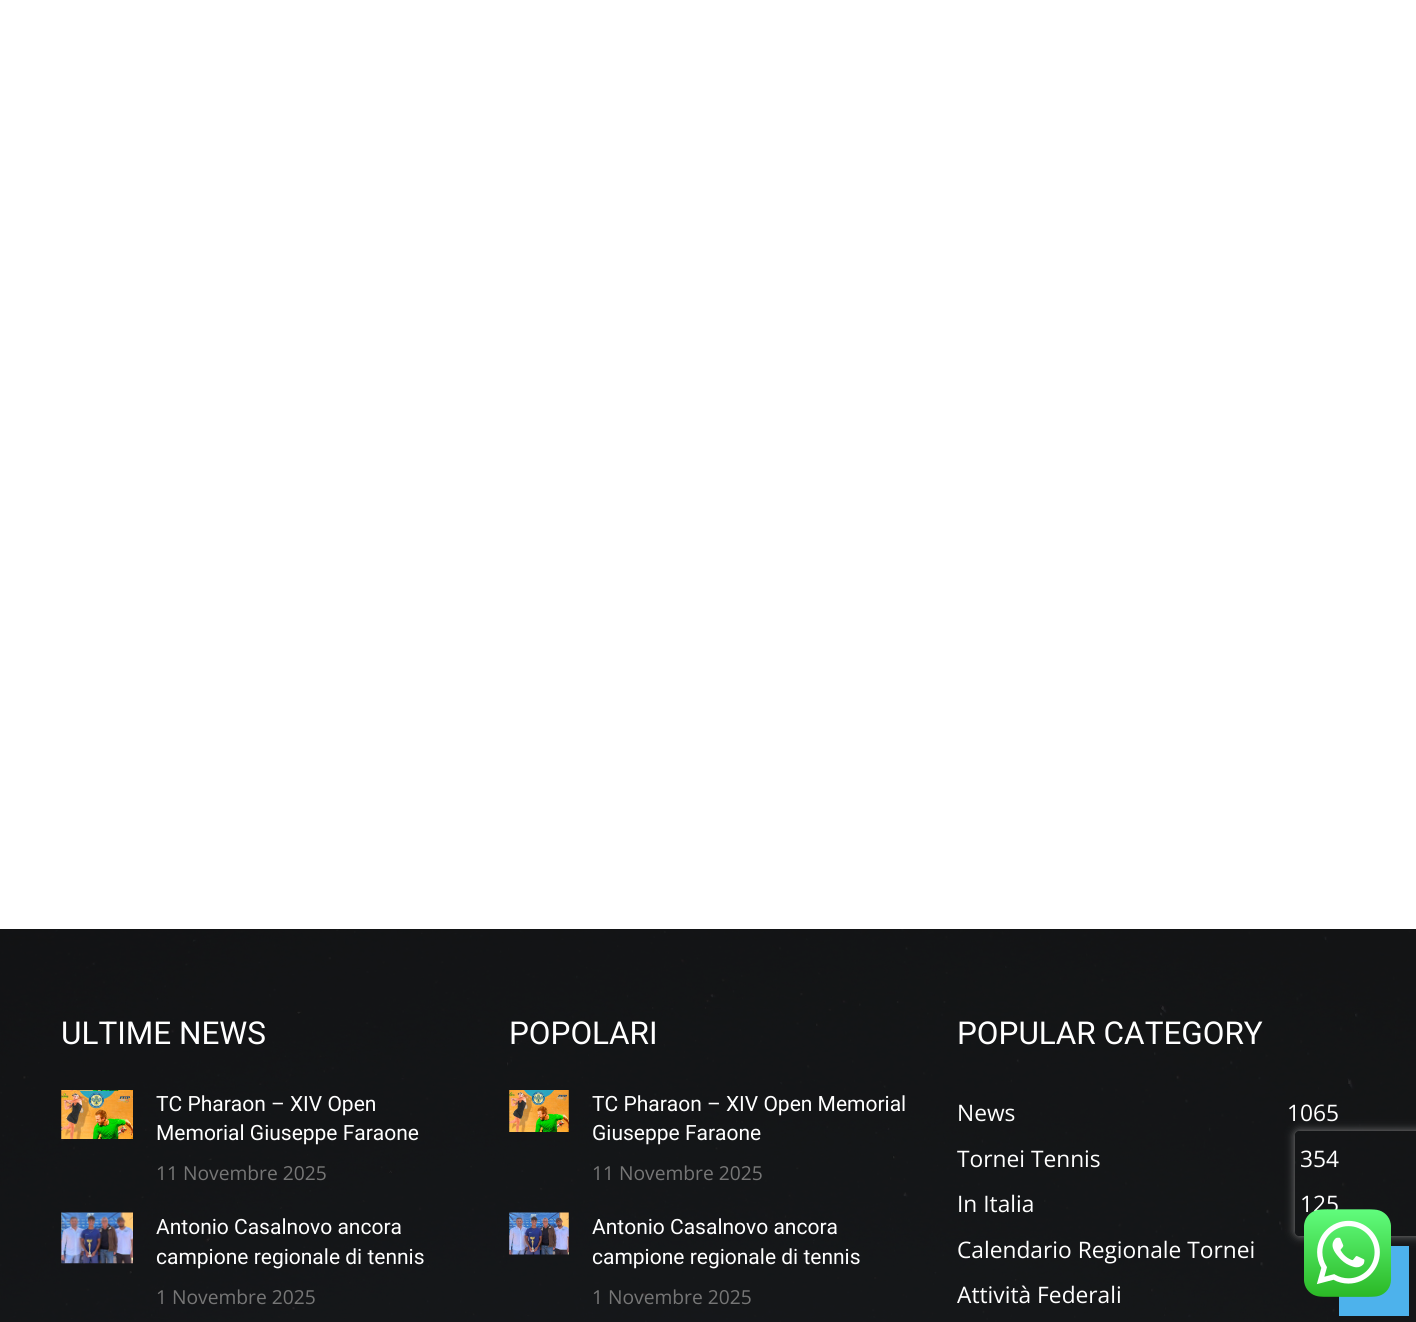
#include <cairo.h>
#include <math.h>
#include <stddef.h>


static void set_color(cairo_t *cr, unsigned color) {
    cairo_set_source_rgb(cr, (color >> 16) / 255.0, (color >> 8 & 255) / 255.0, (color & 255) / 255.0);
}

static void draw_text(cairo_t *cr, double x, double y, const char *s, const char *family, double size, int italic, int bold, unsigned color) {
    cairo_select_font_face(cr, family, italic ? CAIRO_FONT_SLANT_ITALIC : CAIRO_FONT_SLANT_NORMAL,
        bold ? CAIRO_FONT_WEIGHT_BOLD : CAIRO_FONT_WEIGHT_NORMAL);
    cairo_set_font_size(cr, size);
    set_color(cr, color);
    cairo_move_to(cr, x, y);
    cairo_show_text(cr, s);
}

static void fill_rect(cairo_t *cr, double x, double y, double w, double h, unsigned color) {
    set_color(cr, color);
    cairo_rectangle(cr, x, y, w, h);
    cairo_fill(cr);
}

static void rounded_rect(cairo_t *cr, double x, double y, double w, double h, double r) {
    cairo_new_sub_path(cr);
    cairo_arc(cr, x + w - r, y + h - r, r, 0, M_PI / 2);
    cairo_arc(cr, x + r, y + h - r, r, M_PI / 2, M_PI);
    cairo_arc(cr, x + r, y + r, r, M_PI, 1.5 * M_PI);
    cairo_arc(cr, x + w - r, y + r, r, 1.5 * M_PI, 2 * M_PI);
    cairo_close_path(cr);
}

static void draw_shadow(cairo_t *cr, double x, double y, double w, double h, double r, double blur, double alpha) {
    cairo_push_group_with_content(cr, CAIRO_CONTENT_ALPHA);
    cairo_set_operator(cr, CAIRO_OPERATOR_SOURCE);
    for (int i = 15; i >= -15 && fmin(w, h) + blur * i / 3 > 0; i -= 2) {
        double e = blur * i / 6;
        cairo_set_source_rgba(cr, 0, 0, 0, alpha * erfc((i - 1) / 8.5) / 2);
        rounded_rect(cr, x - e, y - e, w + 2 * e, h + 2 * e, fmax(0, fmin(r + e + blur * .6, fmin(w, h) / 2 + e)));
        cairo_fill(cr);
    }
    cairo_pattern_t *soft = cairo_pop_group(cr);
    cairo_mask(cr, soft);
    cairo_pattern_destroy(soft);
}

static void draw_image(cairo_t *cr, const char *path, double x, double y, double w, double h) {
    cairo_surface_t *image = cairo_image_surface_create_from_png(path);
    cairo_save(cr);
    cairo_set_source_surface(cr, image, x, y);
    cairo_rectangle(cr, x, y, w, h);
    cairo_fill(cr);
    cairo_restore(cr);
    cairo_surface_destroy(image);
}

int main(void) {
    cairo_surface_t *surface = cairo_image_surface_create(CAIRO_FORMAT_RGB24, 1416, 1322);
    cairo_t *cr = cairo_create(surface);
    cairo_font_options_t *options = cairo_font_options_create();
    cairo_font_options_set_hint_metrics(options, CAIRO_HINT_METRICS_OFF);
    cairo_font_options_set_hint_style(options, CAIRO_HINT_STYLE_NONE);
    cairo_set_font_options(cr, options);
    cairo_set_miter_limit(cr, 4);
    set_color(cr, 0xFFFFFF);
    cairo_paint(cr);
    fill_rect(cr, 0, 929, 1416, 393, 0x111111);
    draw_image(cr, "assets/img1.png", 0, 929, 1416, 393);
    draw_text(cr, 61, 1044, "ULTIME NEWS", "Roboto", 31.5, 0, 0, 0xFFFFFF);
    draw_image(cr, "assets/img2.png", 61, 1090, 72, 49);
    draw_text(cr, 156, 1111, "TC Pharaon – XIV Open", "Roboto", 21, 0, 0, 0xFFFFFF);
    draw_text(cr, 156, 1140, "Memorial Giuseppe Faraone", "Roboto", 21, 0, 0, 0xFFFFFF);
    draw_text(cr, 156, 1180, "11 Novembre 2025", "Open Sans", 19.25, 0, 0, 0x767676);
    draw_image(cr, "assets/img3.png", 61, 1212, 72, 52);
    draw_text(cr, 156, 1234, "Antonio Casalnovo ancora", "Roboto", 21, 0, 0, 0xFFFFFF);
    draw_text(cr, 156, 1264, "campione regionale di tennis", "Roboto", 21, 0, 0, 0xFFFFFF);
    draw_text(cr, 156, 1304, "1 Novembre 2025", "Open Sans", 19.25, 0, 0, 0x767676);
    draw_text(cr, 509, 1044, "POPOLARI", "Roboto", 31.5, 0, 0, 0xFFFFFF);
    draw_image(cr, "assets/img4.png", 509, 1090, 60, 42);
    draw_text(cr, 592, 1111, "TC Pharaon – XIV Open Memorial", "Roboto", 21, 0, 0, 0xFFFFFF);
    draw_text(cr, 592, 1140, "Giuseppe Faraone", "Roboto", 21, 0, 0, 0xFFFFFF);
    draw_text(cr, 592, 1180, "11 Novembre 2025", "Open Sans", 19.25, 0, 0, 0x767676);
    draw_image(cr, "assets/img5.png", 509, 1212, 60, 43);
    draw_text(cr, 592, 1234, "Antonio Casalnovo ancora", "Roboto", 21, 0, 0, 0xFFFFFF);
    draw_text(cr, 592, 1264, "campione regionale di tennis", "Roboto", 21, 0, 0, 0xFFFFFF);
    draw_text(cr, 592, 1304, "1 Novembre 2025", "Open Sans", 19.25, 0, 0, 0x767676);
    draw_text(cr, 957, 1044, "POPULAR CATEGORY", "Roboto", 31.5, 0, 0, 0xFFFFFF);
    draw_text(cr, 957, 1121, "News", "Open Sans", 22.75, 0, 0, 0xFFFFFF);
    draw_text(cr, 1287, 1121, "1065", "Open Sans", 22.75, 0, 0, 0xFFFFFF);
    draw_text(cr, 957, 1167, "Tornei Tennis", "Open Sans", 22.75, 0, 0, 0xFFFFFF);
    draw_text(cr, 1300, 1167, "354", "Open Sans", 22.75, 0, 0, 0xFFFFFF);
    draw_text(cr, 957, 1212, "In Italia", "Open Sans", 22.75, 0, 0, 0xFFFFFF);
    draw_text(cr, 1300, 1212, "125", "Open Sans", 22.75, 0, 0, 0xFFFFFF);
    draw_text(cr, 957, 1258, "Calendario Regionale Tornei", "Open Sans", 22.75, 0, 0, 0xFFFFFF);
    draw_text(cr, 957, 1303, "Attività Federali", "Open Sans", 22.75, 0, 0, 0xFFFFFF);
    cairo_save(cr);
    cairo_set_fill_rule(cr, CAIRO_FILL_RULE_EVEN_ODD);
    cairo_new_path(cr);
    cairo_move_to(cr, 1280, 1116);
    cairo_line_to(cr, 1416, 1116);
    cairo_line_to(cr, 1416, 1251);
    cairo_line_to(cr, 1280, 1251);
    cairo_close_path(cr);
    cairo_move_to(cr, 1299, 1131);
    cairo_line_to(cr, 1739, 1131);
    cairo_curve_to(cr, 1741, 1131, 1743, 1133, 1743, 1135);
    cairo_line_to(cr, 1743, 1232);
    cairo_curve_to(cr, 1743, 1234, 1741, 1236, 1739, 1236);
    cairo_line_to(cr, 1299, 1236);
    cairo_curve_to(cr, 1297, 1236, 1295, 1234, 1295, 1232);
    cairo_line_to(cr, 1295, 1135);
    cairo_curve_to(cr, 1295, 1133, 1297, 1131, 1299, 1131);
    cairo_close_path(cr);
    cairo_clip(cr);
    set_color(cr, 0x808080);
    draw_shadow(cr, 1295, 1131, 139, 105, 4, 4.5, 1);
    cairo_restore(cr);
    fill_rect(cr, 1339, 1246, 70, 70, 0x4DB2EC);
    draw_image(cr, "assets/img6.png", 1304, 1209, 87, 88);
    cairo_surface_write_to_png(surface, "output.png");
    cairo_font_options_destroy(options);
    cairo_destroy(cr);
    cairo_surface_destroy(surface);
    return 0;
}
